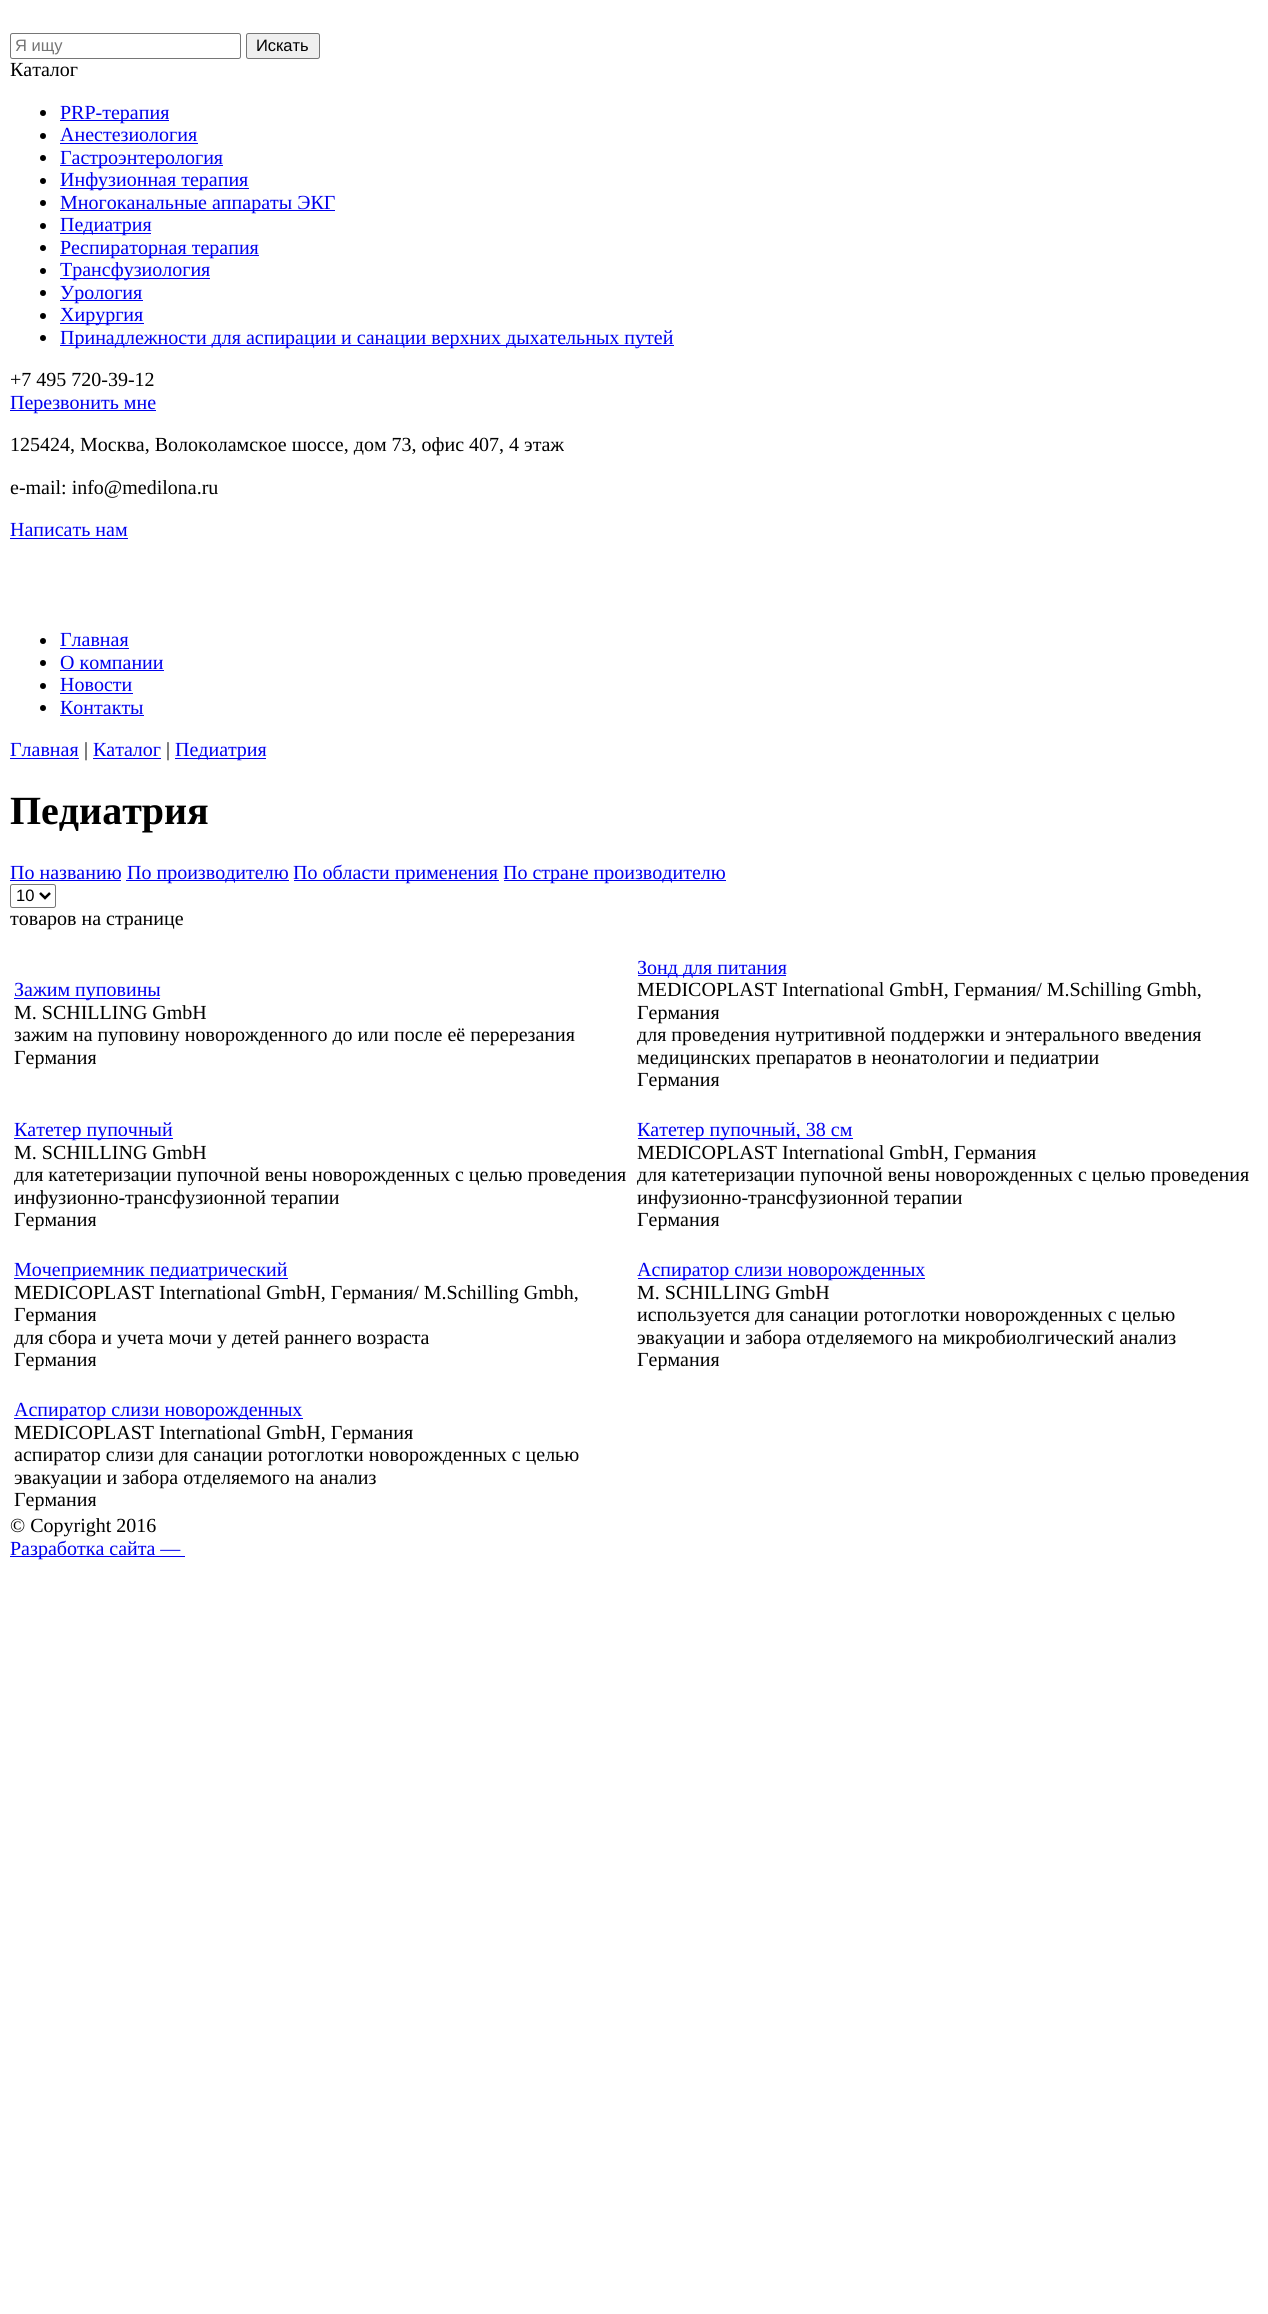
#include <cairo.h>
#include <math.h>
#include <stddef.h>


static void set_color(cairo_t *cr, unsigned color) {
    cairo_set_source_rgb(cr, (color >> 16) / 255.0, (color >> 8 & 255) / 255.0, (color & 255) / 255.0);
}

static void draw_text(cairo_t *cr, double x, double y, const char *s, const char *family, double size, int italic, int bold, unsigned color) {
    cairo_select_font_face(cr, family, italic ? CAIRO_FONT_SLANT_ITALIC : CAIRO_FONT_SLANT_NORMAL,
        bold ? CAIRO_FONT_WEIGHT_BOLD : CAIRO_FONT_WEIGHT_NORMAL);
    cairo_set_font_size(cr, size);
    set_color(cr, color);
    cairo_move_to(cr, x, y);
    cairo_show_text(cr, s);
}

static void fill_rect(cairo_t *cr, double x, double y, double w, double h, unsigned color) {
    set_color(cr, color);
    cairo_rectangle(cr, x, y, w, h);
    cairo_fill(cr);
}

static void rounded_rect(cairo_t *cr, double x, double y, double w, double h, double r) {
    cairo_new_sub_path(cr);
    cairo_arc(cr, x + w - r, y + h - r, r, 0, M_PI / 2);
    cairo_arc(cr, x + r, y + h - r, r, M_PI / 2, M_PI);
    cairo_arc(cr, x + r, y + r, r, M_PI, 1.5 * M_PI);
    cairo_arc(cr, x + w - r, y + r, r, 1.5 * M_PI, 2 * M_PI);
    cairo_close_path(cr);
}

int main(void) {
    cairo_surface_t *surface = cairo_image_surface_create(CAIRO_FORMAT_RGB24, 1268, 2314);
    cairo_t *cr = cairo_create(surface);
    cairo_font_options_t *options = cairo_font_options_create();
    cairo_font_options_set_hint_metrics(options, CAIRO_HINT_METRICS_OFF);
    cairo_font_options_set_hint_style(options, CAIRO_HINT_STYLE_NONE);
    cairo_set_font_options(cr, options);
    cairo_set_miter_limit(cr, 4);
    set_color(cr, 0xFFFFFF);
    cairo_paint(cr);
    rounded_rect(cr, 10.5, 33.5, 230, 25, 2);
    set_color(cr, 0x767676);
    cairo_set_line_width(cr, 1);
    cairo_stroke(cr);
    draw_text(cr, 15, 51, "Я ищу", "Liberation Sans", 16.5, 0, 0, 0x757575);
    set_color(cr, 0xEFEFEF);
    rounded_rect(cr, 246.5, 33.5, 73, 25, 2);
    cairo_fill_preserve(cr);
    set_color(cr, 0x767676);
    cairo_stroke(cr);
    draw_text(cr, 256, 51, "Искать", "Liberation Sans", 16.5, 0, 0, 0x000000);
    draw_text(cr, 10, 76, "Каталог", "Liberation Serif", 20, 0, 0, 0x000000);
    cairo_new_path(cr);
    cairo_arc(cr, 43, 113, 3, 0, 2 * M_PI);
    cairo_fill(cr);
    fill_rect(cr, 60, 120, 109, 1, 0x0000EE);
    draw_text(cr, 60, 119, "PRP-терапия", "Liberation Serif", 20, 0, 0, 0x0000EE);
    set_color(cr, 0x000000);
    cairo_new_path(cr);
    cairo_arc(cr, 43, 136, 3, 0, 2 * M_PI);
    cairo_fill(cr);
    draw_text(cr, 60, 141, "Анестезиология", "Liberation Serif", 20, 0, 0, 0x0000EE);
    fill_rect(cr, 60, 143, 138, 1, 0x0000EE);
    set_color(cr, 0x000000);
    cairo_new_path(cr);
    cairo_arc(cr, 43, 158, 3, 0, 2 * M_PI);
    cairo_fill(cr);
    fill_rect(cr, 60, 165, 163, 1, 0x0000EE);
    draw_text(cr, 60, 164, "Гастроэнтерология", "Liberation Serif", 20, 0, 0, 0x0000EE);
    set_color(cr, 0x000000);
    cairo_new_path(cr);
    cairo_arc(cr, 43, 181, 3, 0, 2 * M_PI);
    cairo_fill(cr);
    fill_rect(cr, 60, 188, 189, 1, 0x0000EE);
    draw_text(cr, 60, 186, "Инфузионная терапия", "Liberation Serif", 20, 0, 0, 0x0000EE);
    set_color(cr, 0x000000);
    cairo_new_path(cr);
    cairo_arc(cr, 43, 203, 3, 0, 2 * M_PI);
    cairo_fill(cr);
    fill_rect(cr, 60, 210, 275, 1, 0x0000EE);
    draw_text(cr, 60, 209, "Многоканальные аппараты ЭКГ", "Liberation Serif", 20, 0, 0, 0x0000EE);
    set_color(cr, 0x000000);
    cairo_new_path(cr);
    cairo_arc(cr, 43, 226, 3, 0, 2 * M_PI);
    cairo_fill(cr);
    fill_rect(cr, 60, 233, 91, 1, 0x0000EE);
    draw_text(cr, 60, 231, "Педиатрия", "Liberation Serif", 20, 0, 0, 0x0000EE);
    set_color(cr, 0x000000);
    cairo_new_path(cr);
    cairo_arc(cr, 43, 248, 3, 0, 2 * M_PI);
    cairo_fill(cr);
    fill_rect(cr, 60, 255, 199, 1, 0x0000EE);
    draw_text(cr, 60, 254, "Респираторная терапия", "Liberation Serif", 20, 0, 0, 0x0000EE);
    set_color(cr, 0x000000);
    cairo_new_path(cr);
    cairo_arc(cr, 43, 271, 3, 0, 2 * M_PI);
    cairo_fill(cr);
    fill_rect(cr, 60, 278, 150, 1, 0x0000EE);
    draw_text(cr, 60, 276, "Трансфузиология", "Liberation Serif", 20, 0, 0, 0x0000EE);
    set_color(cr, 0x000000);
    cairo_new_path(cr);
    cairo_arc(cr, 43, 293, 3, 0, 2 * M_PI);
    cairo_fill(cr);
    fill_rect(cr, 60, 300, 83, 1, 0x0000EE);
    draw_text(cr, 60, 299, "Урология", "Liberation Serif", 20, 0, 0, 0x0000EE);
    set_color(cr, 0x000000);
    cairo_new_path(cr);
    cairo_arc(cr, 43, 316, 3, 0, 2 * M_PI);
    cairo_fill(cr);
    fill_rect(cr, 60, 323, 84, 1, 0x0000EE);
    draw_text(cr, 60, 321, "Хирургия", "Liberation Serif", 20, 0, 0, 0x0000EE);
    set_color(cr, 0x000000);
    cairo_new_path(cr);
    cairo_arc(cr, 43, 338, 3, 0, 2 * M_PI);
    cairo_fill(cr);
    fill_rect(cr, 60, 345, 614, 1, 0x0000EE);
    draw_text(cr, 60, 344, "Принадлежности для аспирации и санации верхних дыхательных путей", "Liberation Serif", 20, 0, 0, 0x0000EE);
    draw_text(cr, 10, 386, "+7 495 720-39-12", "Liberation Serif", 20, 0, 0, 0x000000);
    fill_rect(cr, 10, 410, 146, 1, 0x0000EE);
    draw_text(cr, 10, 409, "Перезвонить мне", "Liberation Serif", 20, 0, 0, 0x0000EE);
    draw_text(cr, 10, 451, "125424, Москва, Волоколамское шоссе, дом 73, офис 407, 4 этаж", "Liberation Serif", 20, 0, 0, 0x000000);
    draw_text(cr, 10, 494, "e-mail: info@medilona.ru", "Liberation Serif", 20, 0, 0, 0x000000);
    draw_text(cr, 10, 536, "Написать нам", "Liberation Serif", 20, 0, 0, 0x0000EE);
    fill_rect(cr, 10, 538, 118, 1, 0x0000EE);
    set_color(cr, 0x000000);
    cairo_new_path(cr);
    cairo_arc(cr, 43, 641, 3, 0, 2 * M_PI);
    cairo_fill(cr);
    draw_text(cr, 60, 646, "Главная", "Liberation Serif", 20, 0, 0, 0x0000EE);
    fill_rect(cr, 60, 648, 69, 1, 0x0000EE);
    set_color(cr, 0x000000);
    cairo_new_path(cr);
    cairo_arc(cr, 43, 663, 3, 0, 2 * M_PI);
    cairo_fill(cr);
    draw_text(cr, 60, 669, "О компании", "Liberation Serif", 20, 0, 0, 0x0000EE);
    fill_rect(cr, 60, 670, 104, 1, 0x0000EE);
    set_color(cr, 0x000000);
    cairo_new_path(cr);
    cairo_arc(cr, 43, 686, 3, 0, 2 * M_PI);
    cairo_fill(cr);
    draw_text(cr, 60, 691, "Новости", "Liberation Serif", 20, 0, 0, 0x0000EE);
    fill_rect(cr, 60, 693, 73, 1, 0x0000EE);
    set_color(cr, 0x000000);
    cairo_new_path(cr);
    cairo_arc(cr, 43, 708, 3, 0, 2 * M_PI);
    cairo_fill(cr);
    draw_text(cr, 60, 714, "Контакты", "Liberation Serif", 20, 0, 0, 0x0000EE);
    fill_rect(cr, 60, 715, 84, 1, 0x0000EE);
    draw_text(cr, 10, 756, "Главная", "Liberation Serif", 20, 0, 0, 0x0000EE);
    fill_rect(cr, 10, 758, 69, 1, 0x0000EE);
    draw_text(cr, 84, 756, "|", "Liberation Serif", 20, 0, 0, 0x000000);
    draw_text(cr, 93, 756, "Каталог", "Liberation Serif", 20, 0, 0, 0x0000EE);
    fill_rect(cr, 93, 758, 68, 1, 0x0000EE);
    draw_text(cr, 166, 756, "|", "Liberation Serif", 20, 0, 0, 0x000000);
    fill_rect(cr, 175, 758, 91, 1, 0x0000EE);
    draw_text(cr, 175, 756, "Педиатрия", "Liberation Serif", 20, 0, 0, 0x0000EE);
    draw_text(cr, 10, 824, "Педиатрия", "Liberation Serif", 40, 0, 1, 0x000000);
    draw_text(cr, 10, 879, "По названию", "Liberation Serif", 20, 0, 0, 0x0000EE);
    fill_rect(cr, 10, 880, 111, 1, 0x0000EE);
    fill_rect(cr, 126, 880, 163, 1, 0x0000EE);
    draw_text(cr, 127, 879, "По производителю", "Liberation Serif", 20, 0, 0, 0x0000EE);
    fill_rect(cr, 294, 880, 205, 1, 0x0000EE);
    draw_text(cr, 293, 879, "По области применения", "Liberation Serif", 20, 0, 0, 0x0000EE);
    fill_rect(cr, 504, 880, 222, 1, 0x0000EE);
    draw_text(cr, 503, 879, "По стране производителю", "Liberation Serif", 20, 0, 0, 0x0000EE);
    rounded_rect(cr, 10.5, 884.5, 45, 23, 2);
    set_color(cr, 0x767676);
    cairo_stroke(cr);
    cairo_new_path(cr);
    cairo_move_to(cr, 40, 893);
    cairo_line_to(cr, 45, 898);
    cairo_line_to(cr, 50, 893);
    set_color(cr, 0x000000);
    cairo_set_line_width(cr, 2.5);
    cairo_stroke(cr);
    draw_text(cr, 16, 901, "10", "Liberation Sans", 16.5, 0, 0, 0x000000);
    draw_text(cr, 10, 925, "товаров на странице", "Liberation Serif", 20, 0, 0, 0x000000);
    fill_rect(cr, 14, 998, 146, 1, 0x0000EE);
    draw_text(cr, 14, 996, "Зажим пуповины", "Liberation Serif", 20, 0, 0, 0x0000EE);
    draw_text(cr, 14, 1019, "M. SCHILLING GmbH", "Liberation Serif", 20, 0, 0, 0x000000);
    draw_text(cr, 14, 1041, "зажим на пуповину новорожденного до или после её перерезания", "Liberation Serif", 20, 0, 0, 0x000000);
    draw_text(cr, 14, 1064, "Германия", "Liberation Serif", 20, 0, 0, 0x000000);
    fill_rect(cr, 638, 975, 148, 1, 0x0000EE);
    draw_text(cr, 637, 974, "Зонд для питания", "Liberation Serif", 20, 0, 0, 0x0000EE);
    draw_text(cr, 637, 996, "MEDICOPLAST International GmbH, Германия/ M.Schilling Gmbh,", "Liberation Serif", 20, 0, 0, 0x000000);
    draw_text(cr, 637, 1019, "Германия", "Liberation Serif", 20, 0, 0, 0x000000);
    draw_text(cr, 637, 1041, "для проведения нутритивной поддержки и энтерального введения", "Liberation Serif", 20, 0, 0, 0x000000);
    draw_text(cr, 637, 1064, "медицинских препаратов в неонатологии и педиатрии", "Liberation Serif", 20, 0, 0, 0x000000);
    draw_text(cr, 637, 1086, "Германия", "Liberation Serif", 20, 0, 0, 0x000000);
    fill_rect(cr, 14, 1138, 159, 1, 0x0000EE);
    draw_text(cr, 14, 1136, "Катетер пупочный", "Liberation Serif", 20, 0, 0, 0x0000EE);
    draw_text(cr, 14, 1159, "M. SCHILLING GmbH", "Liberation Serif", 20, 0, 0, 0x000000);
    draw_text(cr, 14, 1181, "для катетеризации пупочной вены новорожденных с целью проведения", "Liberation Serif", 20, 0, 0, 0x000000);
    draw_text(cr, 14, 1204, "инфузионно-трансфузионной терапии", "Liberation Serif", 20, 0, 0, 0x000000);
    draw_text(cr, 14, 1226, "Германия", "Liberation Serif", 20, 0, 0, 0x000000);
    fill_rect(cr, 638, 1138, 215, 1, 0x0000EE);
    draw_text(cr, 637, 1136, "Катетер пупочный, 38 см", "Liberation Serif", 20, 0, 0, 0x0000EE);
    draw_text(cr, 637, 1159, "MEDICOPLAST International GmbH, Германия", "Liberation Serif", 20, 0, 0, 0x000000);
    draw_text(cr, 637, 1181, "для катетеризации пупочной вены новорожденных с целью проведения", "Liberation Serif", 20, 0, 0, 0x000000);
    draw_text(cr, 637, 1204, "инфузионно-трансфузионной терапии", "Liberation Serif", 20, 0, 0, 0x000000);
    draw_text(cr, 637, 1226, "Германия", "Liberation Serif", 20, 0, 0, 0x000000);
    fill_rect(cr, 14, 1278, 274, 1, 0x0000EE);
    draw_text(cr, 14, 1276, "Мочеприемник педиатрический", "Liberation Serif", 20, 0, 0, 0x0000EE);
    draw_text(cr, 14, 1299, "MEDICOPLAST International GmbH, Германия/ M.Schilling Gmbh,", "Liberation Serif", 20, 0, 0, 0x000000);
    draw_text(cr, 14, 1321, "Германия", "Liberation Serif", 20, 0, 0, 0x000000);
    draw_text(cr, 14, 1344, "для сбора и учета мочи у детей раннего возраста", "Liberation Serif", 20, 0, 0, 0x000000);
    draw_text(cr, 14, 1366, "Германия", "Liberation Serif", 20, 0, 0, 0x000000);
    fill_rect(cr, 638, 1278, 287, 1, 0x0000EE);
    draw_text(cr, 637, 1276, "Аспиратор слизи новорожденных", "Liberation Serif", 20, 0, 0, 0x0000EE);
    draw_text(cr, 637, 1299, "M. SCHILLING GmbH", "Liberation Serif", 20, 0, 0, 0x000000);
    draw_text(cr, 637, 1321, "используется для санации ротоглотки новорожденных с целью", "Liberation Serif", 20, 0, 0, 0x000000);
    draw_text(cr, 637, 1344, "эвакуации и забора отделяемого на микробиолгический анализ", "Liberation Serif", 20, 0, 0, 0x000000);
    draw_text(cr, 637, 1366, "Германия", "Liberation Serif", 20, 0, 0, 0x000000);
    fill_rect(cr, 14, 1418, 289, 1, 0x0000EE);
    draw_text(cr, 14, 1416, "Аспиратор слизи новорожденных", "Liberation Serif", 20, 0, 0, 0x0000EE);
    draw_text(cr, 14, 1439, "MEDICOPLAST International GmbH, Германия", "Liberation Serif", 20, 0, 0, 0x000000);
    draw_text(cr, 14, 1461, "аспиратор слизи для санации ротоглотки новорожденных с целью", "Liberation Serif", 20, 0, 0, 0x000000);
    draw_text(cr, 14, 1484, "эвакуации и забора отделяемого на анализ", "Liberation Serif", 20, 0, 0, 0x000000);
    draw_text(cr, 14, 1506, "Германия", "Liberation Serif", 20, 0, 0, 0x000000);
    draw_text(cr, 10, 1532, "© Copyright 2016", "Liberation Serif", 20, 0, 0, 0x000000);
    fill_rect(cr, 10, 1556, 175, 1, 0x0000EE);
    draw_text(cr, 10, 1555, "Разработка сайта —", "Liberation Serif", 20, 0, 0, 0x0000EE);
    cairo_surface_write_to_png(surface, "output.png");
    cairo_font_options_destroy(options);
    cairo_destroy(cr);
    cairo_surface_destroy(surface);
    return 0;
}
